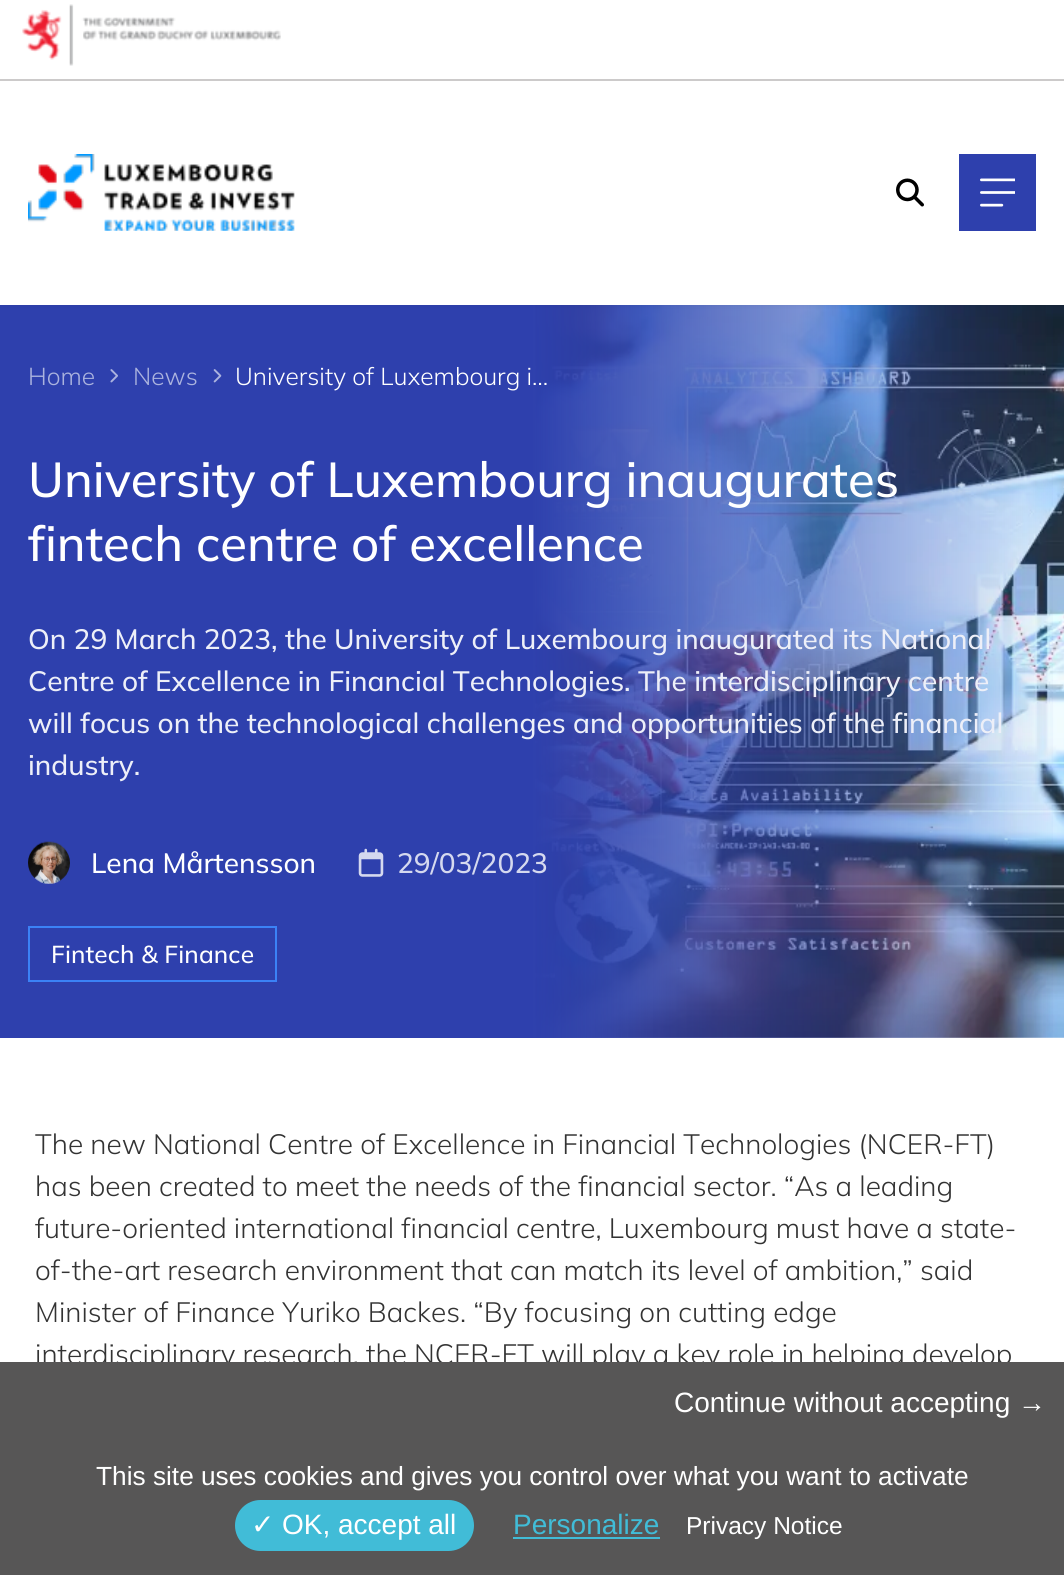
#include <cairo.h>
#include <math.h>
#include <stddef.h>


static void set_color(cairo_t *cr, unsigned color) {
    cairo_set_source_rgb(cr, (color >> 16) / 255.0, (color >> 8 & 255) / 255.0, (color & 255) / 255.0);
}

static void draw_text(cairo_t *cr, double x, double y, const char *s, const char *family, double size, int italic, int bold, unsigned color) {
    cairo_select_font_face(cr, family, italic ? CAIRO_FONT_SLANT_ITALIC : CAIRO_FONT_SLANT_NORMAL,
        bold ? CAIRO_FONT_WEIGHT_BOLD : CAIRO_FONT_WEIGHT_NORMAL);
    cairo_set_font_size(cr, size);
    set_color(cr, color);
    cairo_move_to(cr, x, y);
    cairo_show_text(cr, s);
}

static void draw_spaced(cairo_t *cr, double x, double y, const char *s, double letter, double word) {
    cairo_move_to(cr, x, y);
    while (*s) {
        char ch[5] = {0};
        int n = 0;
        do ch[n++] = *s++; while ((*s & 0xC0) == 0x80);
        cairo_show_text(cr, ch);
        cairo_rel_move_to(cr, letter + word * (*ch == ' '), 0);
    }
}

static void fill_rect(cairo_t *cr, double x, double y, double w, double h, unsigned color) {
    set_color(cr, color);
    cairo_rectangle(cr, x, y, w, h);
    cairo_fill(cr);
}

static void rounded_rect(cairo_t *cr, double x, double y, double w, double h, double r) {
    cairo_new_sub_path(cr);
    cairo_arc(cr, x + w - r, y + h - r, r, 0, M_PI / 2);
    cairo_arc(cr, x + r, y + h - r, r, M_PI / 2, M_PI);
    cairo_arc(cr, x + r, y + r, r, M_PI, 1.5 * M_PI);
    cairo_arc(cr, x + w - r, y + r, r, 1.5 * M_PI, 2 * M_PI);
    cairo_close_path(cr);
}

static void draw_shadow(cairo_t *cr, double x, double y, double w, double h, double r, double blur, double alpha) {
    cairo_push_group_with_content(cr, CAIRO_CONTENT_ALPHA);
    cairo_set_operator(cr, CAIRO_OPERATOR_SOURCE);
    for (int i = 15; i >= -15 && fmin(w, h) + blur * i / 3 > 0; i -= 2) {
        double e = blur * i / 6;
        cairo_set_source_rgba(cr, 0, 0, 0, alpha * erfc((i - 1) / 8.5) / 2);
        rounded_rect(cr, x - e, y - e, w + 2 * e, h + 2 * e, fmax(0, fmin(r + e + blur * .6, fmin(w, h) / 2 + e)));
        cairo_fill(cr);
    }
    cairo_pattern_t *soft = cairo_pop_group(cr);
    cairo_mask(cr, soft);
    cairo_pattern_destroy(soft);
}

static void draw_image(cairo_t *cr, const char *path, double x, double y, double w, double h) {
    cairo_surface_t *image = cairo_image_surface_create_from_png(path);
    cairo_save(cr);
    cairo_set_source_surface(cr, image, x, y);
    cairo_rectangle(cr, x, y, w, h);
    cairo_fill(cr);
    cairo_restore(cr);
    cairo_surface_destroy(image);
}

int main(void) {
    cairo_surface_t *surface = cairo_image_surface_create(CAIRO_FORMAT_RGB24, 1064, 1575);
    cairo_t *cr = cairo_create(surface);
    cairo_font_options_t *options = cairo_font_options_create();
    cairo_font_options_set_hint_metrics(options, CAIRO_HINT_METRICS_OFF);
    cairo_font_options_set_hint_style(options, CAIRO_HINT_STYLE_NONE);
    cairo_set_font_options(cr, options);
    cairo_set_miter_limit(cr, 4);
    cairo_pattern_t *gradient;
    set_color(cr, 0xFFFFFF);
    cairo_paint(cr);
    fill_rect(cr, 0, 305, 532, 733, 0x2E40AD);
    draw_image(cr, "assets/img5.png", 535, 305, 529, 733);
    gradient = cairo_pattern_create_linear(532, 671, 1064, 671);
    cairo_pattern_add_color_stop_rgba(gradient, 0, 0.18, 0.251, 0.678, 1);
    cairo_pattern_add_color_stop_rgba(gradient, 1, 0.18, 0.251, 0.678, 0);
    cairo_set_source(cr, gradient);
    cairo_pattern_destroy(gradient);
    cairo_rectangle(cr, 532, 305, 521, 733);
    cairo_fill(cr);
    set_color(cr, 0x000000);
    draw_shadow(cr, 0, 82, 1064, 224, 0, 2, 0.05);
    fill_rect(cr, 0, 79, 1064, 2, 0xCCCACA);
    draw_image(cr, "assets/img1.png", 22, 4, 259, 62);
    fill_rect(cr, 0, 81, 1064, 224, 0xFFFFFF);
    draw_image(cr, "assets/img2.png", 28, 154, 267, 77);
    draw_image(cr, "assets/img3.png", 896, 178, 28, 29);
    fill_rect(cr, 959, 154, 77, 77, 0x2E40AD);
    draw_image(cr, "assets/img4.png", 980, 178, 35, 29);
    draw_text(cr, 28, 385, "Home", "Mulish Light", 24.5, 0, 0, 0xABB3DE);
    draw_image(cr, "assets/img6.png", 110, 369, 8, 14);
    draw_text(cr, 133, 385, "News", "Mulish Light", 24.5, 0, 0, 0xABB3DE);
    draw_image(cr, "assets/img7.png", 213, 369, 9, 14);
    draw_text(cr, 235, 385, "University of Luxembourg i…", "Mulish Light", 24.5, 0, 0, 0xFFFFFF);
    draw_text(cr, 28, 497, "University of Luxembourg inaugurates", "Mulish Medium", 49, 0, 0, 0xFFFFFF);
    draw_text(cr, 28, 561, "fintech centre of excellence", "Mulish Medium", 49, 0, 0, 0xFFFFFF);
    draw_text(cr, 28, 649, "On 29 March 2023, the University of Luxembourg inaugurated its National", "Mulish Medium", 28, 0, 0, 0xEDEFF8);
    draw_text(cr, 28, 691, "Centre of Excellence in Financial Technologies. The interdisciplinary centre", "Mulish Medium", 28, 0, 0, 0xEDEFF8);
    draw_text(cr, 28, 733, "will focus on the technological challenges and opportunities of the financial", "Mulish Medium", 28, 0, 0, 0xEDEFF8);
    draw_text(cr, 28, 775, "industry.", "Mulish Medium", 28, 0, 0, 0xEDEFF8);
    draw_image(cr, "assets/img8.png", 28, 841, 42, 43);
    draw_text(cr, 91, 873, "Lena Mårtensson", "Mulish Medium", 28, 0, 0, 0xFFFFFF);
    draw_image(cr, "assets/img9.png", 358, 848, 26, 29);
    draw_text(cr, 397, 873, "29/03/2023", "Mulish Medium", 28, 0, 0, 0xD5D9EF);
    cairo_rectangle(cr, 29, 927, 247, 54);
    set_color(cr, 0x3B82F6);
    cairo_stroke(cr);
    cairo_set_font_size(cr, 24.5);
    set_color(cr, 0xFFFFFF);
    draw_spaced(cr, 51, 963, "Fintech & Finance", 0.1, 0);
    draw_text(cr, 35, 1154, "The new National Centre of Excellence in Financial Technologies (NCER-FT)", "Mulish Light", 28, 0, 0, 0x333333);
    draw_text(cr, 35, 1196, "has been created to meet the needs of the financial sector. “As a leading", "Mulish Light", 28, 0, 0, 0x333333);
    draw_text(cr, 35, 1238, "future-oriented international financial centre, Luxembourg must have a state-", "Mulish Light", 28, 0, 0, 0x333333);
    draw_text(cr, 35, 1280, "of-the-art research environment that can match its level of ambition,” said", "Mulish Light", 28, 0, 0, 0x333333);
    draw_text(cr, 35, 1322, "Minister of Finance Yuriko Backes. “By focusing on cutting edge", "Mulish Light", 28, 0, 0, 0x333333);
    draw_text(cr, 35, 1364, "interdisciplinary research, the NCER-FT will play a key role in helping develop", "Mulish Light", 28, 0, 0, 0x333333);
    fill_rect(cr, 0, 1362, 1064, 213, 0x575656);
    draw_text(cr, 674, 1412, "Continue without accepting →", "Liberation Sans", 28, 0, 0, 0xFFFFFF);
    draw_text(cr, 96, 1485, "This site uses cookies and gives you control over what you want to activate", "Liberation Sans", 26.25, 0, 0, 0xFFFFFF);
    set_color(cr, 0x41BCD7);
    rounded_rect(cr, 235, 1500, 239, 51, 25.5);
    cairo_fill(cr);
    draw_text(cr, 251, 1534, "✓", "DejaVu Sans", 28, 0, 0, 0xFFFFFF);
    draw_text(cr, 282, 1534, "OK, accept all", "Liberation Sans", 28, 0, 0, 0xFFFFFF);
    draw_text(cr, 513, 1534, "Personalize", "Liberation Sans", 28, 0, 0, 0x41BCD7);
    fill_rect(cr, 513, 1537, 147, 2, 0x41BCD7);
    draw_text(cr, 686, 1534, "Privacy Notice", "Liberation Sans", 24.5, 0, 0, 0xFFFFFF);
    cairo_surface_write_to_png(surface, "output.png");
    cairo_font_options_destroy(options);
    cairo_destroy(cr);
    cairo_surface_destroy(surface);
    return 0;
}
